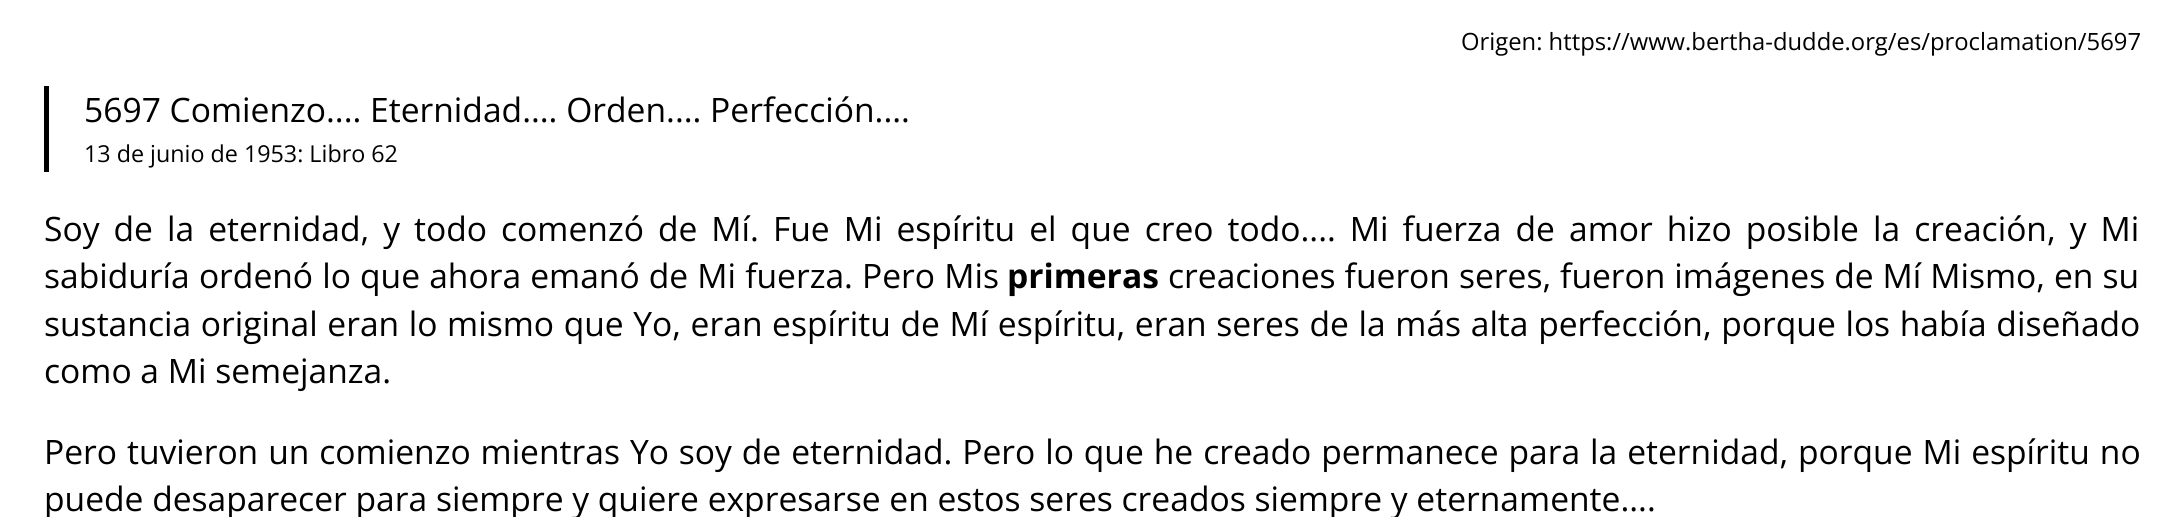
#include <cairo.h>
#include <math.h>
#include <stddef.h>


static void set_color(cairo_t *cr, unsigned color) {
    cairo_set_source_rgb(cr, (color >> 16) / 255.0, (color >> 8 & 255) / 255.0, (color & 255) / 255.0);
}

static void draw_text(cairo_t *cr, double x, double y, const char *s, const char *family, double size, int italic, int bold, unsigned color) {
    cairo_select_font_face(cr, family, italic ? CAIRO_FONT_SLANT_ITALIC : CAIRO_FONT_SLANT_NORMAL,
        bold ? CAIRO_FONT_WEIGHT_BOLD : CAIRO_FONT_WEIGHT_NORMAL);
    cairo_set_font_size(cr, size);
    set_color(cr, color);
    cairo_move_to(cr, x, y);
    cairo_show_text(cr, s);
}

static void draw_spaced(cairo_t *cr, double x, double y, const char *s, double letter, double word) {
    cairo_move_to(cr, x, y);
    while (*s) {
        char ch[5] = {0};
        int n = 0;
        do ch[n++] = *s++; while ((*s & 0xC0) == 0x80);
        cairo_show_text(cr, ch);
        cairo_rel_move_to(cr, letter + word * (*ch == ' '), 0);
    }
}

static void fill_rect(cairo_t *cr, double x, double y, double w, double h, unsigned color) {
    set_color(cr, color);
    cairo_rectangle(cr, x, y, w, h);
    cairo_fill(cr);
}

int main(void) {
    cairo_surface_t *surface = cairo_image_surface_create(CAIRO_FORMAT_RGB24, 2184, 517);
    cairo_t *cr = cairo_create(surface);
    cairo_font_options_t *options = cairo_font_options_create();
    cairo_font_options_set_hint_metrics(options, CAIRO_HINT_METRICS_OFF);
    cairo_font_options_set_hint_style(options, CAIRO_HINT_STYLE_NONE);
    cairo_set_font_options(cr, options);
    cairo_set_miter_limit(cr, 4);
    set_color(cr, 0xFFFFFF);
    cairo_paint(cr);
    draw_text(cr, 1461, 50, "Origen: https://www.bertha-dudde.org/es/proclamation/5697", "Open Sans", 23.8, 0, 0, 0x000000);
    fill_rect(cr, 44, 86, 5, 86, 0x000000);
    draw_text(cr, 84, 122, "5697 Comienzo.... Eternidad.... Orden.... Perfección....", "Open Sans", 33.6, 0, 0, 0x000000);
    draw_text(cr, 84, 162, "13 de junio de 1953: Libro 62", "Open Sans", 23.3, 0, 0, 0x000000);
    cairo_set_font_size(cr, 33.6);
    draw_spaced(cr, 44, 241, "Soy de la eternidad, y todo comenzó de Mí. Fue Mi espíritu el que creo todo.... Mi fuerza de amor hizo posible la creación, y Mi", 0, 5.3);
    draw_spaced(cr, 44, 288, "sabiduría ordenó lo que ahora emanó de Mi fuerza. Pero Mis", 0, 0.4);
    draw_text(cr, 1007, 288, "primeras", "Open Sans", 33.6, 0, 1, 0x000000);
    cairo_select_font_face(cr, "Open Sans", CAIRO_FONT_SLANT_NORMAL, CAIRO_FONT_WEIGHT_NORMAL);
    draw_spaced(cr, 1168, 288, "creaciones fueron seres, fueron imágenes de Mí Mismo, en su", 0, 0.25);
    draw_spaced(cr, 44, 336, "sustancia original eran lo mismo que Yo, eran espíritu de Mí espíritu, eran seres de la más alta perfección, porque los había diseñado", 0, 0.9);
    draw_text(cr, 44, 383, "como a Mi semejanza.", "Open Sans", 33.6, 0, 0, 0x000000);
    draw_spaced(cr, 44, 464, "Pero tuvieron un comienzo mientras Yo soy de eternidad. Pero lo que he creado permanece para la eternidad, porque Mi espíritu no", 0, 1.2);
    draw_text(cr, 44, 511, "puede desaparecer para siempre y quiere expresarse en estos seres creados siempre y eternamente....", "Open Sans", 33.6, 0, 0, 0x000000);
    cairo_surface_write_to_png(surface, "output.png");
    cairo_font_options_destroy(options);
    cairo_destroy(cr);
    cairo_surface_destroy(surface);
    return 0;
}
